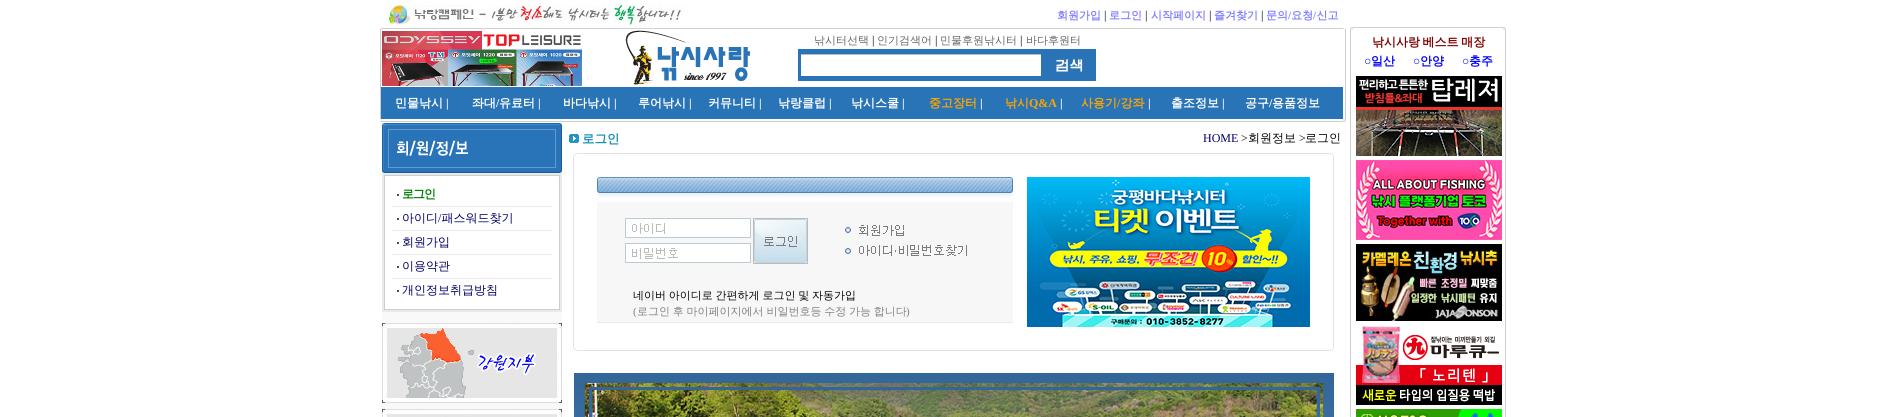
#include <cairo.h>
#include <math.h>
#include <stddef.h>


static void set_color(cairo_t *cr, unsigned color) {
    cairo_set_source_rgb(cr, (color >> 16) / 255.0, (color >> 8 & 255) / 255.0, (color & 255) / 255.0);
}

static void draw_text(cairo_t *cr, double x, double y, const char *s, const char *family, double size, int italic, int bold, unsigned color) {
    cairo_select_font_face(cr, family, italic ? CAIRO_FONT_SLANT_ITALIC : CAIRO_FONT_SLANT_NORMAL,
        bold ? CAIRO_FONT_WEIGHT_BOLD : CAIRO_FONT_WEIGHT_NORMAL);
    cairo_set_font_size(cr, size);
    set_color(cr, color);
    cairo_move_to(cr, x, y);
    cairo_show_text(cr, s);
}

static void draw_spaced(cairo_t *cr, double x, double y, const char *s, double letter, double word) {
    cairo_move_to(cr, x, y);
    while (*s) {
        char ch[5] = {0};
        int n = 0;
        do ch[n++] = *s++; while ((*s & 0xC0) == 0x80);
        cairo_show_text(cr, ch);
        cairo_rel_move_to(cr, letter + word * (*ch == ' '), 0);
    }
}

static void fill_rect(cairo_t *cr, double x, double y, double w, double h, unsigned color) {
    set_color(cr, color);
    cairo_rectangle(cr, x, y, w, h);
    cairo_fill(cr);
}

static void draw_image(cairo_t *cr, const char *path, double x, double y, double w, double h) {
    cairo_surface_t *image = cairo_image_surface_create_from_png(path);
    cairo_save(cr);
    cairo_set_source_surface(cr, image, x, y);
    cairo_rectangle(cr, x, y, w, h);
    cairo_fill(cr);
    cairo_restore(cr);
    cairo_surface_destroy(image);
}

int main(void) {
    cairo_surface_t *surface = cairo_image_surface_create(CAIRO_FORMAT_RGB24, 1889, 417);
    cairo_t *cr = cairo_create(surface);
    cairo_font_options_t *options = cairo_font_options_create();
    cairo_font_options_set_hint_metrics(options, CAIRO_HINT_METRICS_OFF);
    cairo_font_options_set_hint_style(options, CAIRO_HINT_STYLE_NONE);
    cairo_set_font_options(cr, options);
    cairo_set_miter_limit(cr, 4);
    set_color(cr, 0xFFFFFF);
    cairo_paint(cr);
    draw_image(cr, "assets/img1.png", 383, 5, 302, 20);
    draw_text(cr, 1057, 19, "회원가입", "WenQuanYi Zen Hei", 11, 0, 1, 0x8080FF);
    draw_text(cr, 1104, 19, "|", "Liberation Serif", 12, 0, 0, 0x000000);
    draw_text(cr, 1109, 19, "로그인", "WenQuanYi Zen Hei", 11, 0, 1, 0x8080FF);
    draw_text(cr, 1145, 19, "|", "Liberation Serif", 12, 0, 0, 0x000000);
    draw_text(cr, 1151, 19, "시작페이지", "WenQuanYi Zen Hei", 11, 0, 1, 0x8080FF);
    draw_text(cr, 1209, 19, "|", "Liberation Serif", 12, 0, 0, 0x000000);
    draw_text(cr, 1214, 19, "즐겨찾기", "WenQuanYi Zen Hei", 11, 0, 1, 0x8080FF);
    draw_text(cr, 1261, 19, "|", "Liberation Serif", 12, 0, 0, 0x000000);
    draw_text(cr, 1266, 19, "문의 요청 신고", "WenQuanYi Zen Hei", 11, 0, 1, 0x8080FF);
    draw_text(cr, 1288, 19, "/", "Liberation Serif", 11, 0, 1, 0x8080FF);
    draw_text(cr, 1313, 19, "/", "Liberation Serif", 11, 0, 1, 0x8080FF);
    fill_rect(cr, 381, 28, 962, 1, 0xD1D1D1);
    fill_rect(cr, 1343, 28, 1, 1, 0xECECEC);
    fill_rect(cr, 380, 29, 1, 90, 0xCDCDCD);
    draw_image(cr, "assets/img2.png", 382, 31, 200, 55);
    draw_image(cr, "assets/img3.png", 625, 30, 125, 55);
    draw_text(cr, 814, 44, "낚시터선택", "WenQuanYi Zen Hei Medium", 11, 0, 0, 0x666666);
    draw_text(cr, 872, 44, "|", "Liberation Serif", 12, 0, 0, 0x000000);
    draw_text(cr, 877, 44, "인기검색어", "WenQuanYi Zen Hei Medium", 11, 0, 0, 0x666666);
    draw_text(cr, 935, 44, "|", "Liberation Serif", 12, 0, 0, 0x000000);
    draw_text(cr, 940, 44, "민물후원낚시터", "WenQuanYi Zen Hei Medium", 11, 0, 0, 0x666666);
    draw_text(cr, 1020, 44, "|", "Liberation Serif", 12, 0, 0, 0x000000);
    draw_text(cr, 1026, 44, "바다후원터", "WenQuanYi Zen Hei Medium", 11, 0, 0, 0x666666);
    fill_rect(cr, 798, 49, 243, 32, 0x2974B7);
    fill_rect(cr, 801, 55, 240, 21, 0xFFFFFF);
    fill_rect(cr, 801, 54, 240, 1, 0xBBBBBB);
    draw_image(cr, "assets/img4.png", 1041, 49, 55, 32);
    fill_rect(cr, 381, 87, 962, 32, 0x2974B7);
    draw_text(cr, 395, 107, "민물낚시", "WenQuanYi Zen Hei", 12, 0, 1, 0xFFFFFF);
    draw_text(cr, 446, 107, "|", "Liberation Serif", 12, 0, 1, 0xFFFFFF);
    draw_text(cr, 472, 107, "좌대", "WenQuanYi Zen Hei", 12, 0, 1, 0xFFFFFF);
    draw_text(cr, 496, 107, "/", "Liberation Serif", 12, 0, 1, 0xFFFFFF);
    draw_text(cr, 499, 107, "유료터", "WenQuanYi Zen Hei", 12, 0, 1, 0xFFFFFF);
    draw_text(cr, 538, 107, "|", "Liberation Serif", 12, 0, 1, 0xFFFFFF);
    draw_text(cr, 563, 107, "바다낚시", "WenQuanYi Zen Hei", 12, 0, 1, 0xFFFFFF);
    draw_text(cr, 614, 107, "|", "Liberation Serif", 12, 0, 1, 0xFFFFFF);
    draw_text(cr, 638, 107, "루어낚시", "WenQuanYi Zen Hei", 12, 0, 1, 0xFFFFFF);
    draw_text(cr, 689, 107, "|", "Liberation Serif", 12, 0, 1, 0xFFFFFF);
    draw_text(cr, 708, 107, "커뮤니티", "WenQuanYi Zen Hei", 12, 0, 1, 0xFFFFFF);
    draw_text(cr, 759, 107, "|", "Liberation Serif", 12, 0, 1, 0xFFFFFF);
    draw_text(cr, 778, 107, "낚랑클럽", "WenQuanYi Zen Hei", 12, 0, 1, 0xFFFFFF);
    draw_text(cr, 829, 107, "|", "Liberation Serif", 12, 0, 1, 0xFFFFFF);
    draw_text(cr, 851, 107, "낚시스쿨", "WenQuanYi Zen Hei", 12, 0, 1, 0xFFFFFF);
    draw_text(cr, 902, 107, "|", "Liberation Serif", 12, 0, 1, 0xFFFFFF);
    draw_text(cr, 929, 107, "중고장터", "WenQuanYi Zen Hei", 12, 0, 1, 0xFFA500);
    draw_text(cr, 980, 107, "|", "Liberation Serif", 12, 0, 1, 0xFFFFFF);
    draw_text(cr, 1005, 107, "낚시", "WenQuanYi Zen Hei", 12, 0, 1, 0xFFA500);
    draw_text(cr, 1029, 107, "Q&A", "Liberation Serif", 12, 0, 1, 0xFFA500);
    draw_text(cr, 1060, 107, "|", "Liberation Serif", 12, 0, 1, 0xFFFFFF);
    draw_text(cr, 1081, 107, "사용기 강좌", "WenQuanYi Zen Hei", 12, 0, 1, 0xFFA500);
    draw_text(cr, 1148, 107, "|", "Liberation Serif", 12, 0, 1, 0xFFFFFF);
    draw_text(cr, 1117, 107, "/", "Liberation Serif", 12, 0, 1, 0xFFA500);
    draw_text(cr, 1171, 107, "출조정보", "WenQuanYi Zen Hei", 12, 0, 1, 0xFFFFFF);
    draw_text(cr, 1222, 107, "|", "Liberation Serif", 12, 0, 1, 0xFFFFFF);
    draw_text(cr, 1245, 107, "공구", "WenQuanYi Zen Hei", 12, 0, 1, 0xFFFFFF);
    draw_text(cr, 1269, 107, "/", "Liberation Serif", 12, 0, 1, 0xFFFFFF);
    draw_text(cr, 1272, 107, "용품정보", "WenQuanYi Zen Hei", 12, 0, 1, 0xFFFFFF);
    fill_rect(cr, 1345, 29, 1, 90, 0xCDCDCD);
    draw_image(cr, "assets/img5.png", 380, 119, 1, 3);
    fill_rect(cr, 381, 121, 962, 1, 0xCDCDCD);
    fill_rect(cr, 1343, 119, 3, 3, 0xE3E3E3);
    fill_rect(cr, 382, 312, 180, 97, 0xF9F9F9);
    draw_image(cr, "assets/img6.png", 382, 123, 180, 50);
    fill_rect(cr, 382, 173, 180, 139, 0xEAEAEA);
    fill_rect(cr, 384, 175, 176, 135, 0xCDCDCD);
    fill_rect(cr, 385, 176, 174, 133, 0xFFFFFF);
    fill_rect(cr, 397, 194, 2, 2, 0x4F4F4F);
    set_color(cr, 0x008000);
    draw_spaced(cr, 402, 198, "로그인", -1, 0);
    fill_rect(cr, 392, 206, 160, 1, 0xEAEAEA);
    draw_text(cr, 402, 222, "아이디 패스워드찾기", "WenQuanYi Zen Hei Medium", 12, 0, 0, 0x000066);
    fill_rect(cr, 397, 218, 2, 2, 0x4F4F4F);
    draw_text(cr, 438, 222, "/", "Liberation Serif", 12, 0, 0, 0x000066);
    fill_rect(cr, 392, 230, 160, 1, 0xEAEAEA);
    fill_rect(cr, 397, 242, 2, 2, 0x4F4F4F);
    draw_text(cr, 402, 246, "회원가입", "WenQuanYi Zen Hei Medium", 12, 0, 0, 0x000066);
    fill_rect(cr, 392, 254, 160, 1, 0xEAEAEA);
    fill_rect(cr, 397, 266, 2, 2, 0x4F4F4F);
    draw_text(cr, 402, 270, "이용약관", "WenQuanYi Zen Hei Medium", 12, 0, 0, 0x000066);
    fill_rect(cr, 392, 278, 160, 1, 0xEAEAEA);
    fill_rect(cr, 397, 290, 2, 2, 0x4F4F4F);
    draw_text(cr, 402, 294, "개인정보취급방침", "WenQuanYi Zen Hei Medium", 12, 0, 0, 0x000066);
    draw_image(cr, "assets/img7.png", 382, 323, 180, 80);
    draw_image(cr, "assets/img8.png", 382, 409, 180, 8);
    draw_image(cr, "assets/img9.png", 569, 134, 10, 9);
    draw_text(cr, 582, 143, "로그인", "WenQuanYi Zen Hei", 12.5, 0, 1, 0x178EB6);
    draw_text(cr, 1203, 142, "HOME", "Liberation Serif", 12, 0, 0, 0x000066);
    draw_text(cr, 1241, 142, ">", "Liberation Serif", 12, 0, 0, 0x000000);
    draw_text(cr, 1248, 142, "회원정보", "WenQuanYi Zen Hei Medium", 12, 0, 0, 0x000000);
    draw_text(cr, 1299, 142, ">", "Liberation Serif", 12, 0, 0, 0x000000);
    draw_text(cr, 1305, 142, "로그인", "WenQuanYi Zen Hei Medium", 12, 0, 0, 0x000000);
    draw_image(cr, "assets/img10.png", 573, 153, 4, 4);
    fill_rect(cr, 577, 153, 753, 1, 0xE2E2E2);
    draw_image(cr, "assets/img11.png", 1330, 153, 4, 4);
    fill_rect(cr, 573, 157, 1, 190, 0xE2E2E2);
    draw_image(cr, "assets/img12.png", 597, 177, 416, 21);
    fill_rect(cr, 597, 202, 416, 120, 0xF7F7F7);
    draw_image(cr, "assets/img13.png", 626, 219, 124, 18);
    cairo_rectangle(cr, 625.5, 218.5, 125, 19);
    set_color(cr, 0xBACBD5);
    cairo_set_line_width(cr, 1);
    cairo_stroke(cr);
    cairo_rectangle(cr, 753.5, 218.5, 54, 45);
    set_color(cr, 0xBBBBBB);
    cairo_stroke(cr);
    draw_image(cr, "assets/img14.png", 754, 219, 53, 44);
    draw_image(cr, "assets/img15.png", 845, 225, 59, 11);
    draw_image(cr, "assets/img16.png", 845, 245, 122, 11);
    draw_image(cr, "assets/img17.png", 626, 244, 124, 18);
    cairo_rectangle(cr, 625.5, 243.5, 125, 19);
    set_color(cr, 0xBACBD5);
    cairo_stroke(cr);
    cairo_set_font_size(cr, 11);
    set_color(cr, 0x000000);
    draw_spaced(cr, 633, 299, "네이버 아이디로 간편하게 로그인 및 자동가입", 0, -0.5);
    draw_text(cr, 633, 315, "(", "Liberation Serif", 11, 0, 0, 0x808080);
    cairo_select_font_face(cr, "WenQuanYi Zen Hei Medium", CAIRO_FONT_SLANT_NORMAL, CAIRO_FONT_WEIGHT_NORMAL);
    draw_spaced(cr, 637, 315, "로그인 후 마이페이지에서 비일번호등 수정 가능 합니다", 0, -0.5);
    draw_text(cr, 906, 315, ")", "Liberation Serif", 11, 0, 0, 0x808080);
    fill_rect(cr, 597, 322, 416, 1, 0xEBEBEB);
    draw_image(cr, "assets/img18.png", 1027, 177, 283, 150);
    fill_rect(cr, 1333, 157, 1, 190, 0xE2E2E2);
    draw_image(cr, "assets/img19.png", 573, 347, 4, 4);
    fill_rect(cr, 577, 350, 753, 1, 0xE2E2E2);
    draw_image(cr, "assets/img20.png", 1330, 347, 4, 4);
    draw_image(cr, "assets/img21.png", 574, 373, 760, 44);
    fill_rect(cr, 1350, 27, 3, 3, 0xE3E3E3);
    fill_rect(cr, 1353, 27, 150, 1, 0xD1D1D1);
    fill_rect(cr, 1503, 27, 3, 3, 0xE3E3E3);
    fill_rect(cr, 1350, 30, 1, 387, 0xCDCDCD);
    cairo_select_font_face(cr, "WenQuanYi Zen Hei", CAIRO_FONT_SLANT_NORMAL, CAIRO_FONT_WEIGHT_BOLD);
    cairo_set_font_size(cr, 12);
    set_color(cr, 0x800000);
    draw_spaced(cr, 1372, 46, "낚시사랑 베스트 매장", 0, -1);
    draw_text(cr, 1364, 65, "○", "Liberation Serif", 12, 0, 1, 0x0000FF);
    draw_text(cr, 1371, 65, "일산", "WenQuanYi Zen Hei", 12, 0, 1, 0x0000FF);
    draw_text(cr, 1413, 65, "○", "Liberation Serif", 12, 0, 1, 0x0000FF);
    draw_text(cr, 1420, 65, "안양", "WenQuanYi Zen Hei", 12, 0, 1, 0x0000FF);
    draw_text(cr, 1462, 65, "○", "Liberation Serif", 12, 0, 1, 0x0000FF);
    draw_text(cr, 1469, 65, "충주", "WenQuanYi Zen Hei", 12, 0, 1, 0x0000FF);
    draw_image(cr, "assets/img22.png", 1356, 76, 146, 80);
    draw_image(cr, "assets/img23.png", 1356, 160, 146, 80);
    draw_image(cr, "assets/img24.png", 1356, 244, 146, 77);
    draw_image(cr, "assets/img25.png", 1356, 326, 146, 79);
    draw_image(cr, "assets/img26.png", 1356, 409, 146, 8);
    fill_rect(cr, 1505, 30, 1, 387, 0xCDCDCD);
    cairo_surface_write_to_png(surface, "output.png");
    cairo_font_options_destroy(options);
    cairo_destroy(cr);
    cairo_surface_destroy(surface);
    return 0;
}
